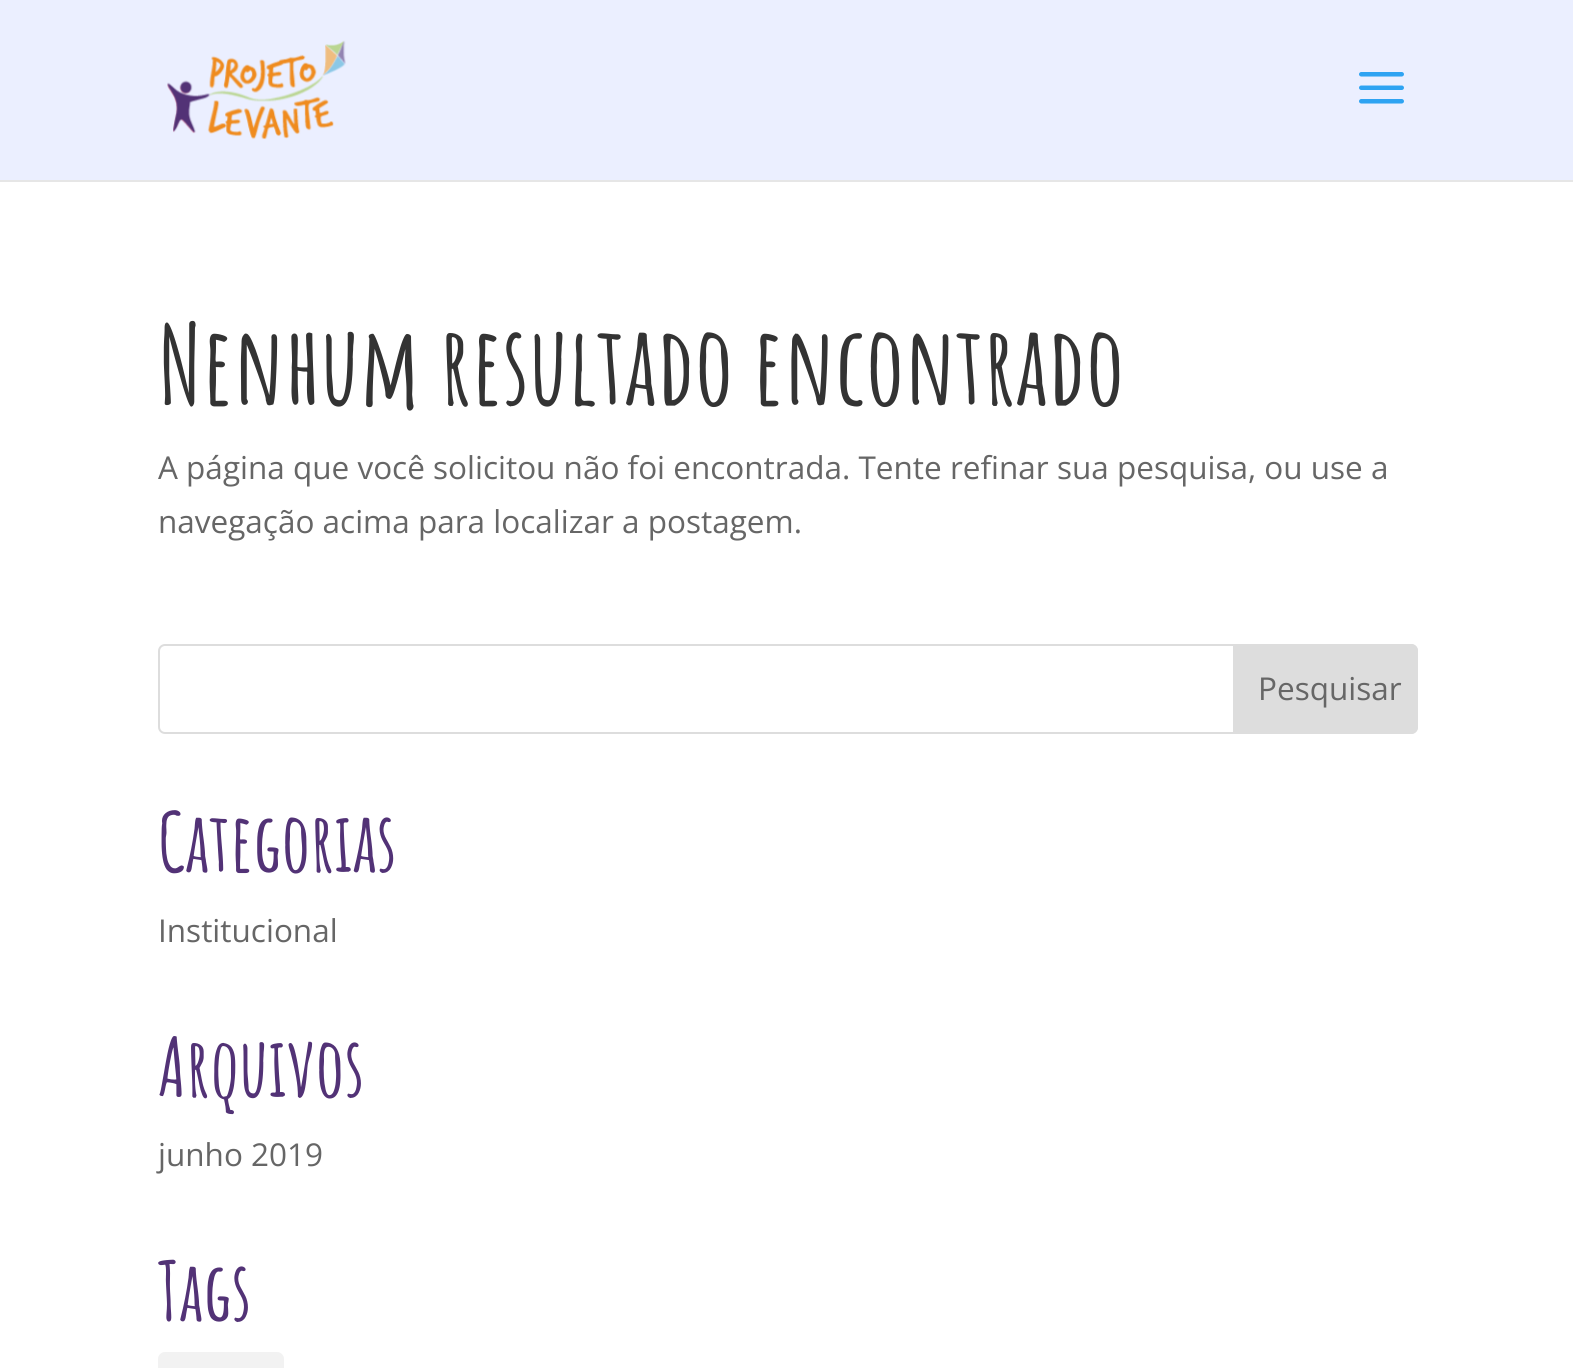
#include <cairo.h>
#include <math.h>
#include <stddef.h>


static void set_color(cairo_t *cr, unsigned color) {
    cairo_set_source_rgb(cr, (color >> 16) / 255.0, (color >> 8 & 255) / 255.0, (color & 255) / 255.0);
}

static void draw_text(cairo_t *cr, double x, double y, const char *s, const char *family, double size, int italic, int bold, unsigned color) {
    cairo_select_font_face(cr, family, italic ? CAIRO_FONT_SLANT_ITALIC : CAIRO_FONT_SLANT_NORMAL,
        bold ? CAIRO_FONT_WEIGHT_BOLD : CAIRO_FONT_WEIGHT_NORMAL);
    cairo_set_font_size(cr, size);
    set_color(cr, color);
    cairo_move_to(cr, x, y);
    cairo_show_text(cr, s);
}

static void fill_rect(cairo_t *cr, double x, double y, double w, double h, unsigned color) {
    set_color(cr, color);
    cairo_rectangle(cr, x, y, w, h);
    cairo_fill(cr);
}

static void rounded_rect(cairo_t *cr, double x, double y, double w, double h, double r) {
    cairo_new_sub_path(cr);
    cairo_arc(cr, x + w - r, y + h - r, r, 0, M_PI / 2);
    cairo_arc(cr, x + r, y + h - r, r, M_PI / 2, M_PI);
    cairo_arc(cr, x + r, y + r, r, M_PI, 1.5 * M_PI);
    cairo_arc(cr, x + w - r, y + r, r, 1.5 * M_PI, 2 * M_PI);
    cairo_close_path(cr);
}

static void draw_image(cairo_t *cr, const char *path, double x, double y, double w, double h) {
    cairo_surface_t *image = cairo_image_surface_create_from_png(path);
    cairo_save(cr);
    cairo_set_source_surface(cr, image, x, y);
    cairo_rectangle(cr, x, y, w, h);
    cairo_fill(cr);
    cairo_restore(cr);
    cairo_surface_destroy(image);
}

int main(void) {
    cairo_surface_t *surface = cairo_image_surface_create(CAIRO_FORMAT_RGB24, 1573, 1368);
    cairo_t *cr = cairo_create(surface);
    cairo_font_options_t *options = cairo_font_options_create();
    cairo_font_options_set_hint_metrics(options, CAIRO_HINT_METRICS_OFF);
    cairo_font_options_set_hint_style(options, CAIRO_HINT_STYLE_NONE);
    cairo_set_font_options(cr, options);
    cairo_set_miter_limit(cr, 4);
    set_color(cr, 0xFFFFFF);
    cairo_paint(cr);
    fill_rect(cr, 0, 180, 1573, 2, 0xE6E6E6);
    fill_rect(cr, 0, 0, 1573, 180, 0xEBEFFF);
    draw_image(cr, "assets/img1.png", 167, 40, 179, 100);
    draw_image(cr, "assets/img2.png", 1359, 72, 45, 32);
    draw_text(cr, 158, 405, "Nenhum resultado encontrado", "Amatic SC", 108, 0, 1, 0x333333);
    draw_text(cr, 158, 479, "A página que você solicitou não foi encontrada. Tente refinar sua pesquisa, ou use a", "Open Sans", 31.5, 0, 0, 0x666666);
    draw_text(cr, 158, 533, "navegação acima para localizar a postagem.", "Open Sans", 31.5, 0, 0, 0x666666);
    rounded_rect(cr, 159, 645, 1258, 88, 6);
    set_color(cr, 0xDDDDDD);
    cairo_stroke(cr);
    cairo_new_path(cr);
    cairo_move_to(cr, 1234, 645);
    cairo_line_to(cr, 1411, 645);
    cairo_curve_to(cr, 1414.5, 645, 1417, 647.5, 1417, 651);
    cairo_line_to(cr, 1417, 727);
    cairo_curve_to(cr, 1417, 730.5, 1414.5, 733, 1411, 733);
    cairo_line_to(cr, 1234, 733);
    cairo_close_path(cr);
    cairo_fill_preserve(cr);
    cairo_stroke(cr);
    draw_text(cr, 1258, 700, "Pesquisar", "Open Sans", 31.5, 0, 0, 0x666666);
    draw_text(cr, 158, 872, "Categorias", "Amatic SC", 81, 0, 1, 0x523276);
    draw_text(cr, 158, 942, "Institucional", "Open Sans", 31.5, 0, 0, 0x666666);
    draw_text(cr, 158, 1097, "Arquivos", "Amatic SC", 81, 0, 1, 0x523276);
    draw_text(cr, 158, 1166, "junho 2019", "Open Sans", 31.5, 0, 0, 0x666666);
    draw_text(cr, 158, 1321, "Tags", "Amatic SC", 81, 0, 1, 0x523276);
    set_color(cr, 0xF2F2F2);
    rounded_rect(cr, 158, 1352, 126, 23, 7);
    cairo_fill(cr);
    cairo_surface_write_to_png(surface, "output.png");
    cairo_font_options_destroy(options);
    cairo_destroy(cr);
    cairo_surface_destroy(surface);
    return 0;
}
